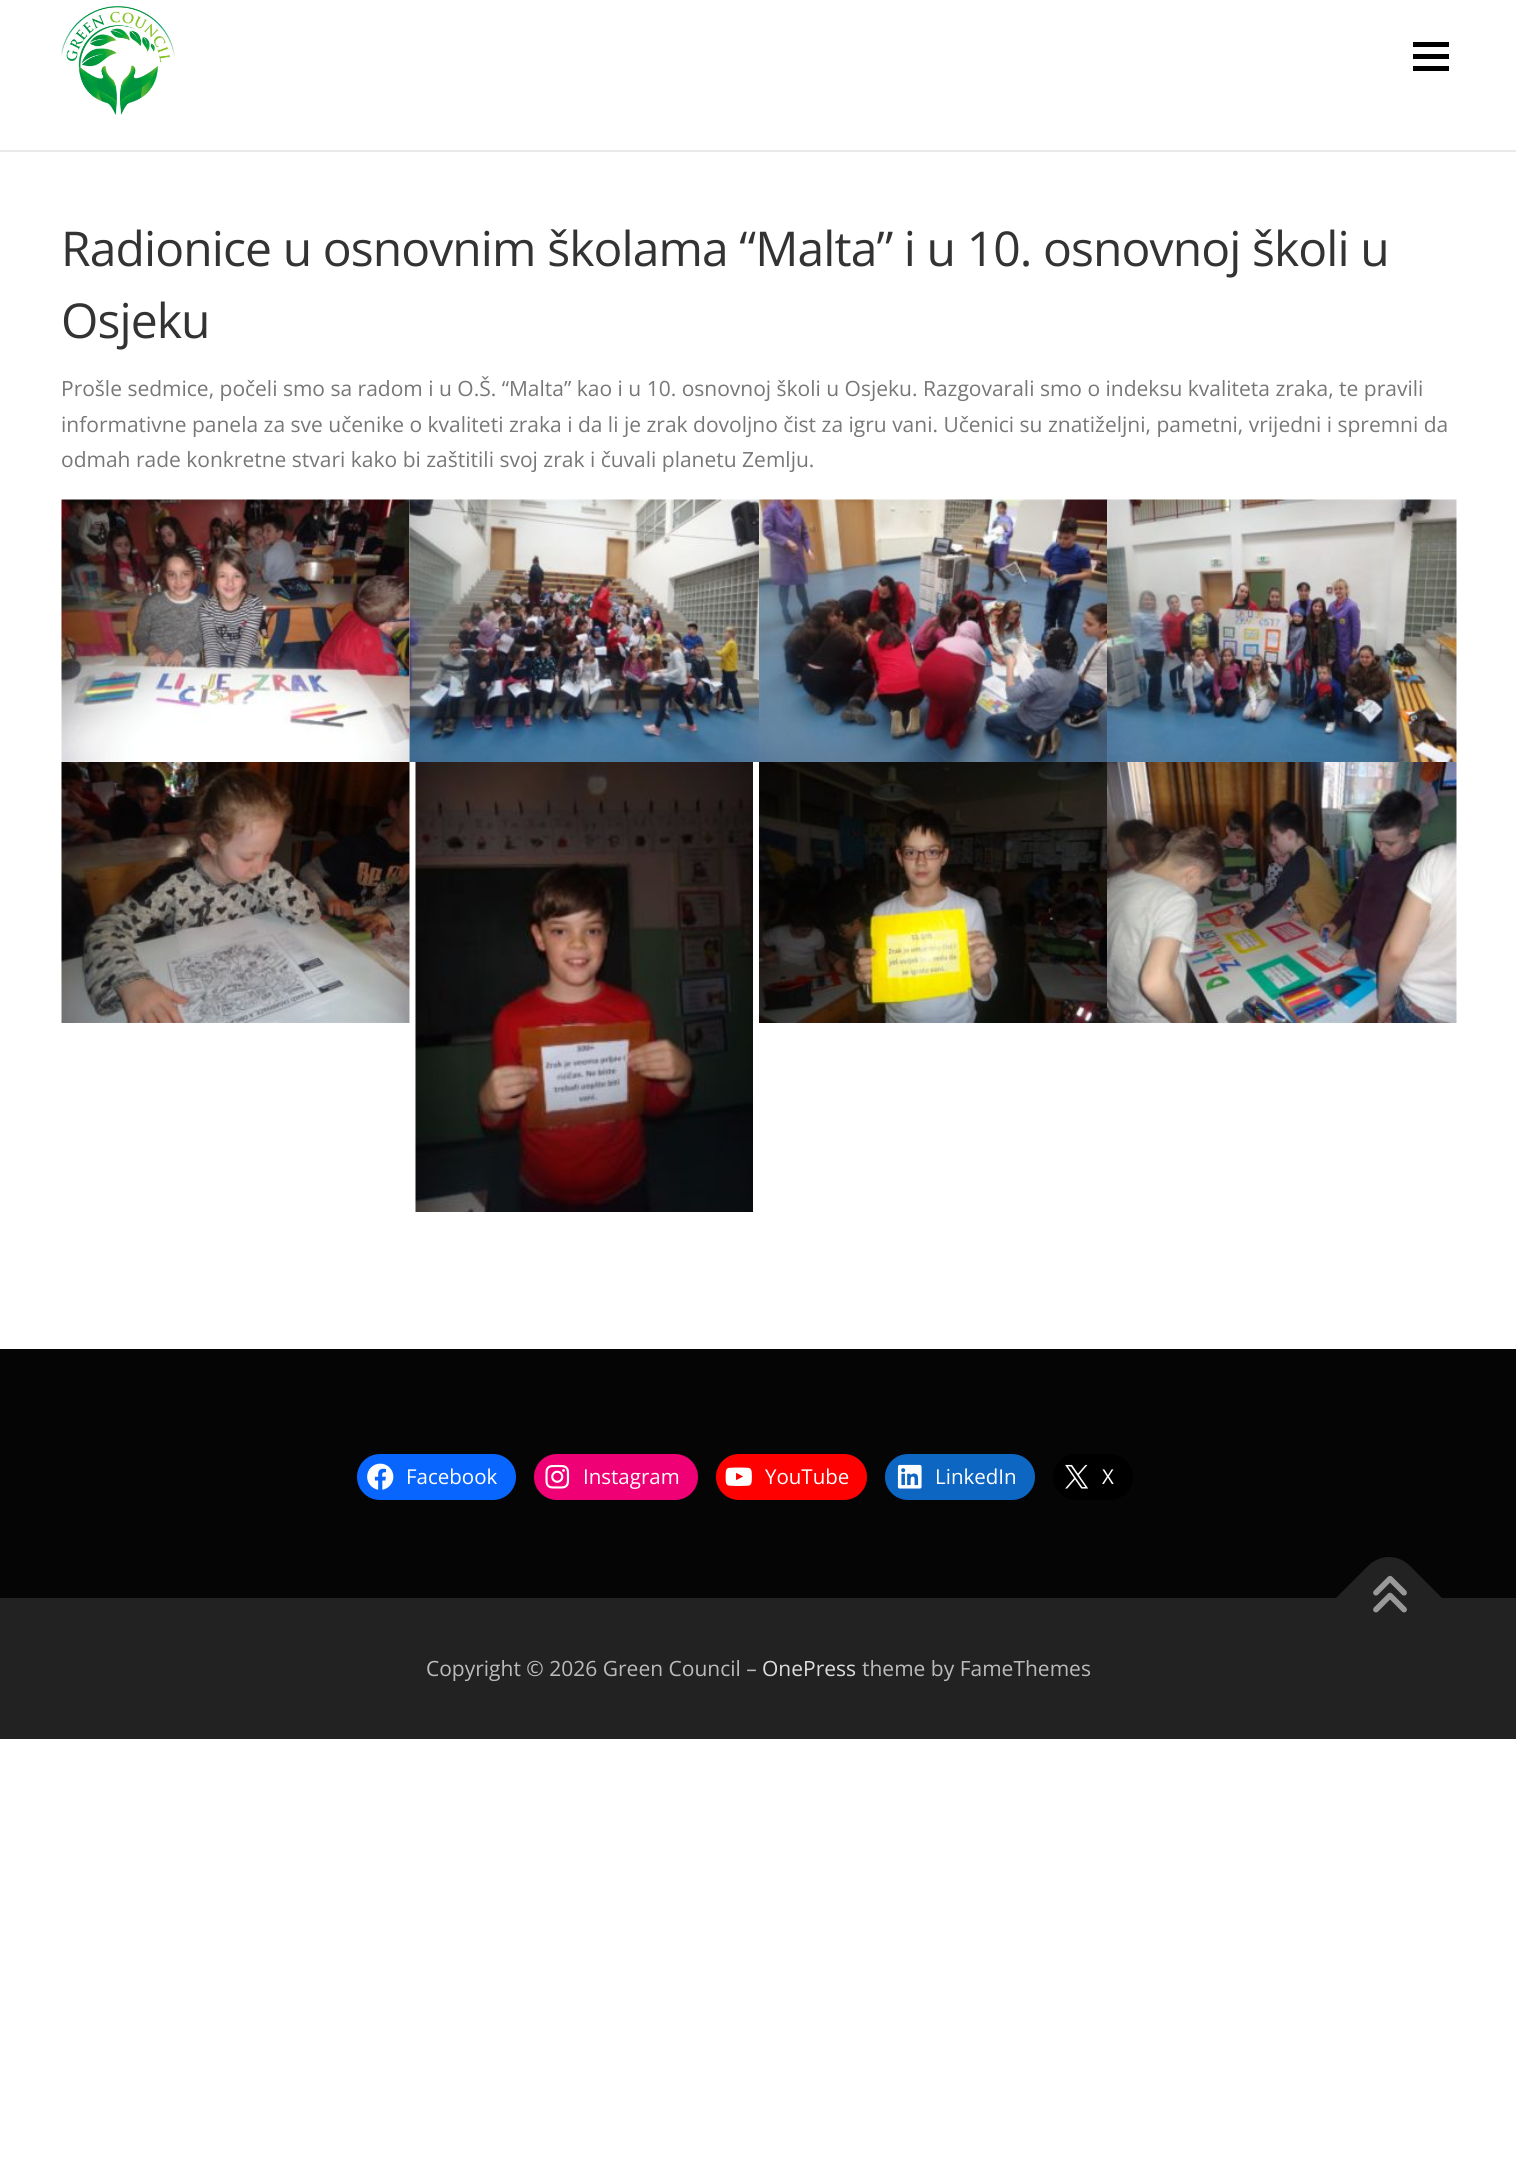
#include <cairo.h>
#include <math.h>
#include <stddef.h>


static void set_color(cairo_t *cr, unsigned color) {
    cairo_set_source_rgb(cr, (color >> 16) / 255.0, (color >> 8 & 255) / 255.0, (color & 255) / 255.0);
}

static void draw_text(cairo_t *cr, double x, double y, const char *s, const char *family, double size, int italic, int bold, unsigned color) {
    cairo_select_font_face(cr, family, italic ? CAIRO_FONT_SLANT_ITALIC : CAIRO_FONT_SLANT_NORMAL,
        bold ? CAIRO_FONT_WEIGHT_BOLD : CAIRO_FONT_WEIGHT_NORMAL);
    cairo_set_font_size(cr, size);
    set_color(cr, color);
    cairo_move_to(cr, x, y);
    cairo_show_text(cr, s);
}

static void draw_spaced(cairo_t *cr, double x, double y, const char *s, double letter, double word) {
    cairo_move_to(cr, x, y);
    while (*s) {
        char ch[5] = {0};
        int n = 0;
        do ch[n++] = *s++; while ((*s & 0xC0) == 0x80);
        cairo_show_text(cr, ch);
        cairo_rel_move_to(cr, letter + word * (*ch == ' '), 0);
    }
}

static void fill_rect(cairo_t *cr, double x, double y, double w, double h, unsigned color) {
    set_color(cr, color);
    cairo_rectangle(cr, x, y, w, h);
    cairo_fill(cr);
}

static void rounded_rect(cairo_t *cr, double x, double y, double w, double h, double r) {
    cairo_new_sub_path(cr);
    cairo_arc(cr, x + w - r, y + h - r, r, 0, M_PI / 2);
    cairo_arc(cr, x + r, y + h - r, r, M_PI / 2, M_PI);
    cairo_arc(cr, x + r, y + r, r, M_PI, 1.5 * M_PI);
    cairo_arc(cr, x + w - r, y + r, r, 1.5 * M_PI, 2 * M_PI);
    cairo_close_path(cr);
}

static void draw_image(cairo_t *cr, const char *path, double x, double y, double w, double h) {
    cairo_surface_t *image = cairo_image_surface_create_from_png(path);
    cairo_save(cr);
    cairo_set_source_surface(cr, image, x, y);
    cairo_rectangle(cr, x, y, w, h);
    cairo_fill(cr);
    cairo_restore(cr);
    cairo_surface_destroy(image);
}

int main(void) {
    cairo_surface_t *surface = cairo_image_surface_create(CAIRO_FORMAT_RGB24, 1516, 2164);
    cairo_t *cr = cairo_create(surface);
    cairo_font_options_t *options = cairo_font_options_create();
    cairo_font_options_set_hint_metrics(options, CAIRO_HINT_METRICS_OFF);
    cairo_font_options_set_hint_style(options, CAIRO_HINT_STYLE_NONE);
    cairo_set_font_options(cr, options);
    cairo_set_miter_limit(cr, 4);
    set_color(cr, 0xFFFFFF);
    cairo_paint(cr);
    draw_image(cr, "assets/img1.png", 61, 6, 114, 109);
    fill_rect(cr, 1413, 54, 36, 5, 0x000000);
    fill_rect(cr, 1413, 42, 36, 5, 0x000000);
    fill_rect(cr, 1413, 66, 36, 5, 0x000000);
    fill_rect(cr, 0, 150, 1516, 2, 0xE9E9E9);
    cairo_select_font_face(cr, "Open Sans", CAIRO_FONT_SLANT_NORMAL, CAIRO_FONT_WEIGHT_NORMAL);
    cairo_set_font_size(cr, 48);
    set_color(cr, 0x333333);
    draw_spaced(cr, 61, 266, "Radionice u osnovnim školama “Malta” i u 10. osnovnoj školi u", -0.9, 0);
    draw_spaced(cr, 61, 338, "Osjeku", -0.9, 0);
    draw_text(cr, 61, 396, "Prošle sedmice, počeli smo sa radom i u O.Š. “Malta” kao i u 10. osnovnoj školi u Osjeku. Razgovarali smo o indeksu kvaliteta zraka, te pravili", "Open Sans", 21, 0, 0, 0x777777);
    draw_text(cr, 61, 432, "informativne panela za sve učenike o kvaliteti zraka i da li je zrak dovoljno čist za igru vani. Učenici su znatiželjni, pametni, vrijedni i spremni da", "Open Sans", 21, 0, 0, 0x777777);
    draw_text(cr, 61, 467, "odmah rade konkretne stvari kako bi zaštitili svoj zrak i čuvali planetu Zemlju.", "Open Sans", 21, 0, 0, 0x777777);
    draw_image(cr, "assets/img2.png", 61, 499, 349, 263);
    draw_image(cr, "assets/img3.png", 409, 499, 350, 263);
    draw_image(cr, "assets/img4.png", 759, 499, 348, 263);
    draw_image(cr, "assets/img5.png", 1107, 499, 350, 263);
    draw_image(cr, "assets/img6.png", 61, 762, 349, 261);
    draw_image(cr, "assets/img7.png", 415, 762, 338, 450);
    draw_image(cr, "assets/img8.png", 759, 762, 348, 261);
    draw_image(cr, "assets/img9.png", 1107, 762, 350, 261);
    fill_rect(cr, 0, 1349, 1516, 249, 0x050505);
    set_color(cr, 0x0866FF);
    rounded_rect(cr, 357, 1454, 159, 46, 23);
    cairo_fill(cr);
    draw_image(cr, "assets/img10.png", 367, 1463, 27, 27);
    draw_text(cr, 406, 1484, "Facebook", "Open Sans", 20.5, 0, 0, 0xFFFFFF);
    set_color(cr, 0xF00075);
    rounded_rect(cr, 534, 1454, 164, 46, 23);
    cairo_fill(cr);
    draw_image(cr, "assets/img11.png", 545, 1464, 25, 25);
    draw_text(cr, 583, 1484, "Instagram", "Open Sans", 20.5, 0, 0, 0xFFFFFF);
    set_color(cr, 0xFF0000);
    rounded_rect(cr, 716, 1454, 151, 46, 23);
    cairo_fill(cr);
    draw_image(cr, "assets/img12.png", 725, 1467, 27, 19);
    draw_text(cr, 765, 1484, "YouTube", "Open Sans", 20.5, 0, 0, 0xFFFFFF);
    set_color(cr, 0x0D66C2);
    rounded_rect(cr, 885, 1454, 150, 46, 23);
    cairo_fill(cr);
    draw_image(cr, "assets/img13.png", 897, 1464, 25, 25);
    draw_text(cr, 935, 1484, "LinkedIn", "Open Sans", 20.5, 0, 0, 0xFFFFFF);
    set_color(cr, 0x000000);
    rounded_rect(cr, 1053, 1454, 80, 46, 23);
    cairo_fill(cr);
    draw_image(cr, "assets/img14.png", 1065, 1464, 24, 25);
    draw_text(cr, 1102, 1484, "X", "Open Sans", 20.5, 0, 0, 0xFFFFFF);
    fill_rect(cr, 0, 1598, 1516, 141, 0x222222);
    cairo_new_path(cr);
    cairo_move_to(cr, 1336, 1598);
    cairo_line_to(cr, 1368, 1566);
    cairo_curve_to(cr, 1380, 1554, 1398, 1554, 1410, 1566);
    cairo_line_to(cr, 1442, 1598);
    cairo_line_to(cr, 1389, 1651);
    cairo_close_path(cr);
    cairo_fill(cr);
    draw_image(cr, "assets/img15.png", 1373, 1575, 34, 38);
    draw_text(cr, 426, 1676, "Copyright © 2026 Green Council –", "Open Sans", 21, 0, 0, 0xBBBBBB);
    draw_text(cr, 762, 1676, "OnePress", "Open Sans", 21, 0, 0, 0xDDDDDD);
    draw_text(cr, 862, 1676, "theme by FameThemes", "Open Sans", 21, 0, 0, 0xBBBBBB);
    cairo_surface_write_to_png(surface, "output.png");
    cairo_font_options_destroy(options);
    cairo_destroy(cr);
    cairo_surface_destroy(surface);
    return 0;
}
